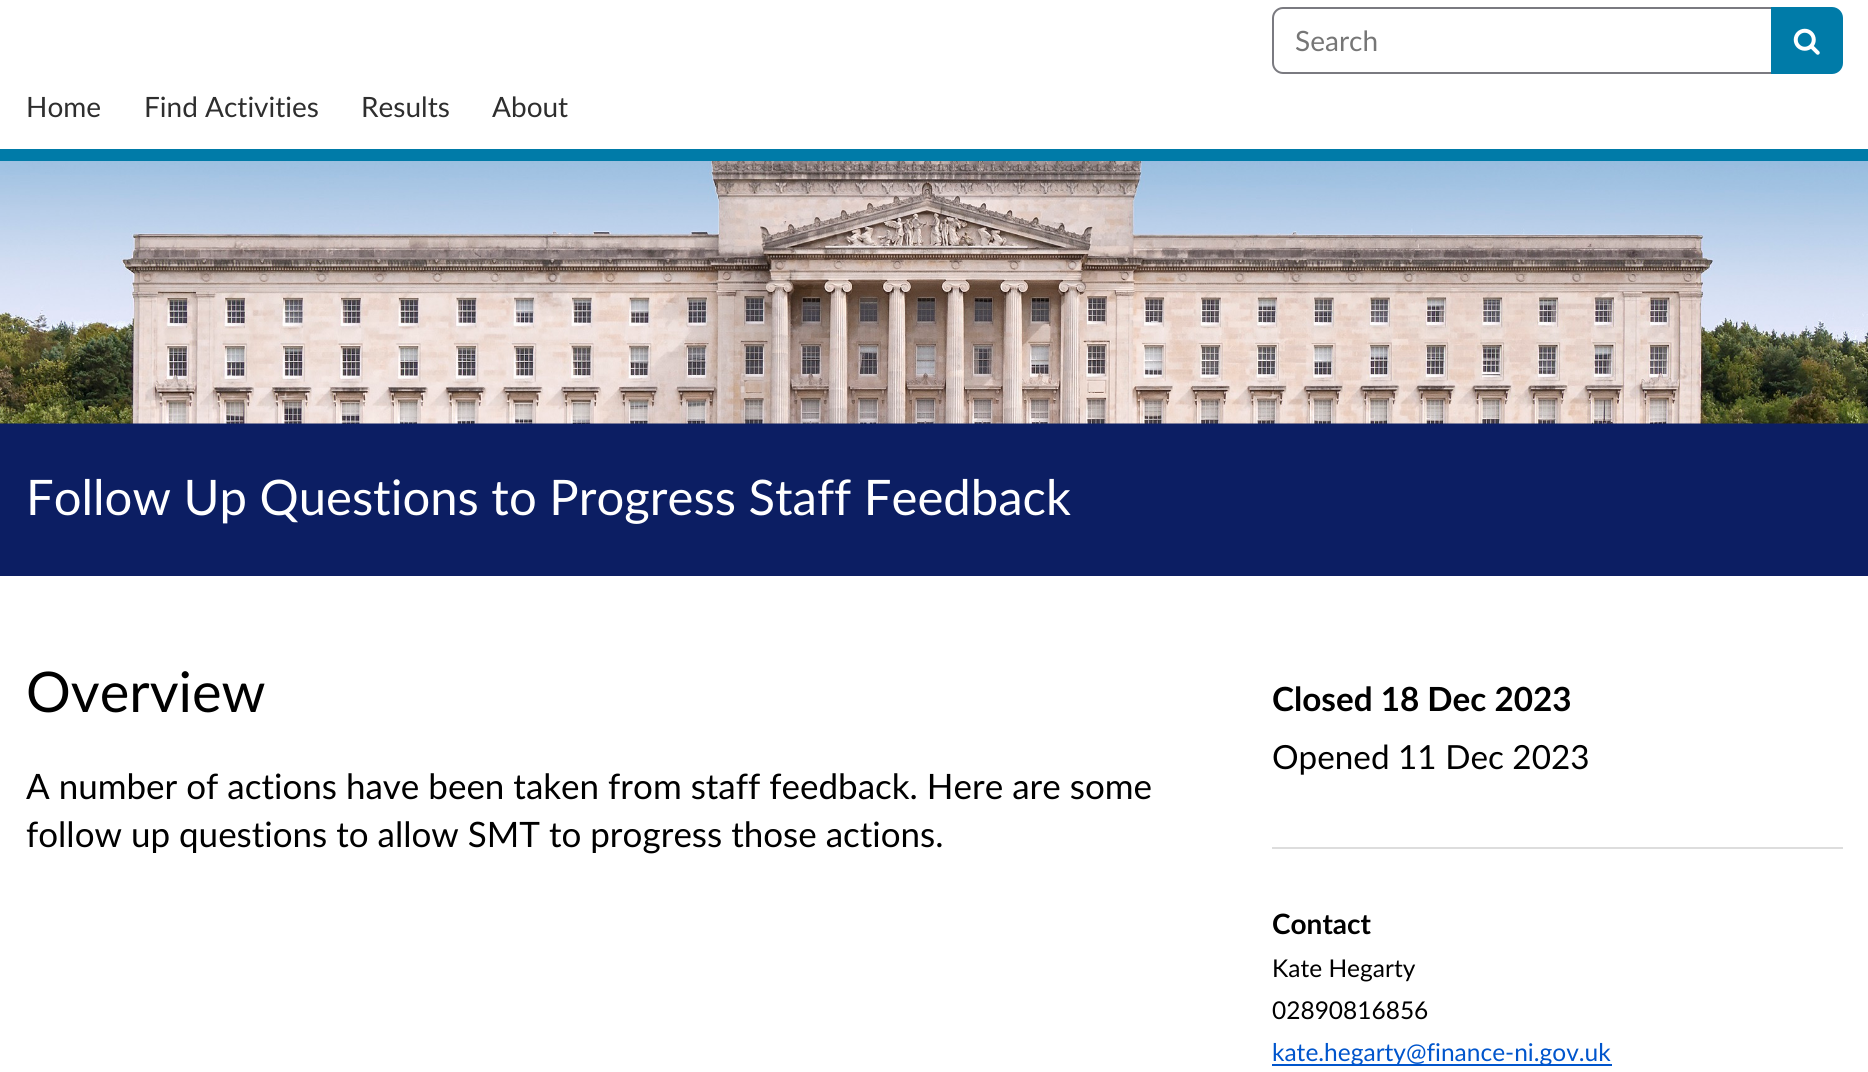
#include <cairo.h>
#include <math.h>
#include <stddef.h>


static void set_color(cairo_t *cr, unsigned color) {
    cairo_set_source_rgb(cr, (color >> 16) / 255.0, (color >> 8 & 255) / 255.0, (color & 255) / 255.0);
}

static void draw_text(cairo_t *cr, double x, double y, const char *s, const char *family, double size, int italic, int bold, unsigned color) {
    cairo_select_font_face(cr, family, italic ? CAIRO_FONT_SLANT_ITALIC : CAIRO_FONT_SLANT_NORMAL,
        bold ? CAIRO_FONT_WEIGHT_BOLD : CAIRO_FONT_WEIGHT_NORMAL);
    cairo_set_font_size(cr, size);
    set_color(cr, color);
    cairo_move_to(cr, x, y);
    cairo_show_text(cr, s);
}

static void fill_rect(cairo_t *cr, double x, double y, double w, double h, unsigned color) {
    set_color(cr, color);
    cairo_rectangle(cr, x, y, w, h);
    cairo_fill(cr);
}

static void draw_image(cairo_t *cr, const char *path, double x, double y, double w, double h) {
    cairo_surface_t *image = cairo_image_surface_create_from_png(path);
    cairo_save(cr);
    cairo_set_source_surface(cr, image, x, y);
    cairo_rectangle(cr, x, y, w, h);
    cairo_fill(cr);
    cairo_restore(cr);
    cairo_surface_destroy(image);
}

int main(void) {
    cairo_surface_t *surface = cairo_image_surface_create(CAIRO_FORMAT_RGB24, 1868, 1072);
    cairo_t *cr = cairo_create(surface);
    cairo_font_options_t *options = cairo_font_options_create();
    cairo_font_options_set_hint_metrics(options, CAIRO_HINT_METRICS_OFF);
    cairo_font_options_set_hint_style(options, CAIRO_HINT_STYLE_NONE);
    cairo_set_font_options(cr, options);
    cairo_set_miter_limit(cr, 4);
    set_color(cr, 0xFFFFFF);
    cairo_paint(cr);
    fill_rect(cr, 0, 149, 1868, 12, 0x007BA8);
    cairo_new_path(cr);
    cairo_move_to(cr, 1283, 8);
    cairo_line_to(cr, 1772, 8);
    cairo_line_to(cr, 1772, 73);
    cairo_line_to(cr, 1283, 73);
    cairo_curve_to(cr, 1277.5, 73, 1273, 68.5, 1273, 63);
    cairo_line_to(cr, 1273, 18);
    cairo_curve_to(cr, 1273, 12.5, 1277.5, 8, 1283, 8);
    cairo_close_path(cr);
    set_color(cr, 0x7A7A80);
    cairo_stroke(cr);
    draw_text(cr, 1295, 51, "Search", "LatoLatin", 28, 0, 0, 0x767676);
    set_color(cr, 0x007BA8);
    cairo_new_path(cr);
    cairo_move_to(cr, 1772, 8);
    cairo_line_to(cr, 1832, 8);
    cairo_curve_to(cr, 1837.5, 8, 1842, 12.5, 1842, 18);
    cairo_line_to(cr, 1842, 63);
    cairo_curve_to(cr, 1842, 68.5, 1837.5, 73, 1832, 73);
    cairo_line_to(cr, 1772, 73);
    cairo_close_path(cr);
    cairo_fill_preserve(cr);
    cairo_stroke(cr);
    draw_image(cr, "assets/img1.png", 1793, 28, 27, 27);
    draw_text(cr, 26, 117, "Home", "LatoLatin", 28, 0, 0, 0x2E2E2E);
    draw_text(cr, 144, 117, "Find Activities", "LatoLatin", 28, 0, 0, 0x2E2E2E);
    draw_text(cr, 361, 117, "Results", "LatoLatin", 28, 0, 0, 0x2E2E2E);
    draw_text(cr, 492, 117, "About", "LatoLatin", 28, 0, 0, 0x2E2E2E);
    fill_rect(cr, 0, 423, 1868, 153, 0x0C1E63);
    draw_image(cr, "assets/img2.png", 0, 161, 1868, 263);
    draw_text(cr, 26, 515, "Follow Up Questions to Progress Staff Feedback", "LatoLatin", 49, 0, 0, 0xFFFFFF);
    draw_text(cr, 26, 712, "Overview", "LatoLatin", 56, 0, 0, 0x000000);
    draw_text(cr, 26, 799, "A number of actions have been taken from staff feedback. Here are some", "LatoLatin", 35, 0, 0, 0x000000);
    draw_text(cr, 26, 847, "follow up questions to allow SMT to progress those actions.", "LatoLatin", 35, 0, 0, 0x000000);
    fill_rect(cr, 1272, 847, 571, 2, 0xDDDDDD);
    draw_text(cr, 1272, 711, "Closed 18 Dec 2023", "LatoLatin", 33.25, 0, 1, 0x000000);
    draw_text(cr, 1272, 769, "Opened 11 Dec 2023", "LatoLatin", 33.25, 0, 0, 0x000000);
    draw_text(cr, 1272, 934, "Contact", "LatoLatin", 28, 0, 1, 0x000000);
    draw_text(cr, 1272, 977, "Kate Hegarty", "LatoLatin", 24.5, 0, 0, 0x000000);
    draw_text(cr, 1272, 1019, "02890816856", "LatoLatin", 24.5, 0, 0, 0x000000);
    fill_rect(cr, 1272, 1064, 340, 2, 0x0055CC);
    draw_text(cr, 1272, 1061, "kate.hegarty@finance-ni.gov.uk", "LatoLatin", 24.5, 0, 0, 0x0055CC);
    cairo_surface_write_to_png(surface, "output.png");
    cairo_font_options_destroy(options);
    cairo_destroy(cr);
    cairo_surface_destroy(surface);
    return 0;
}
